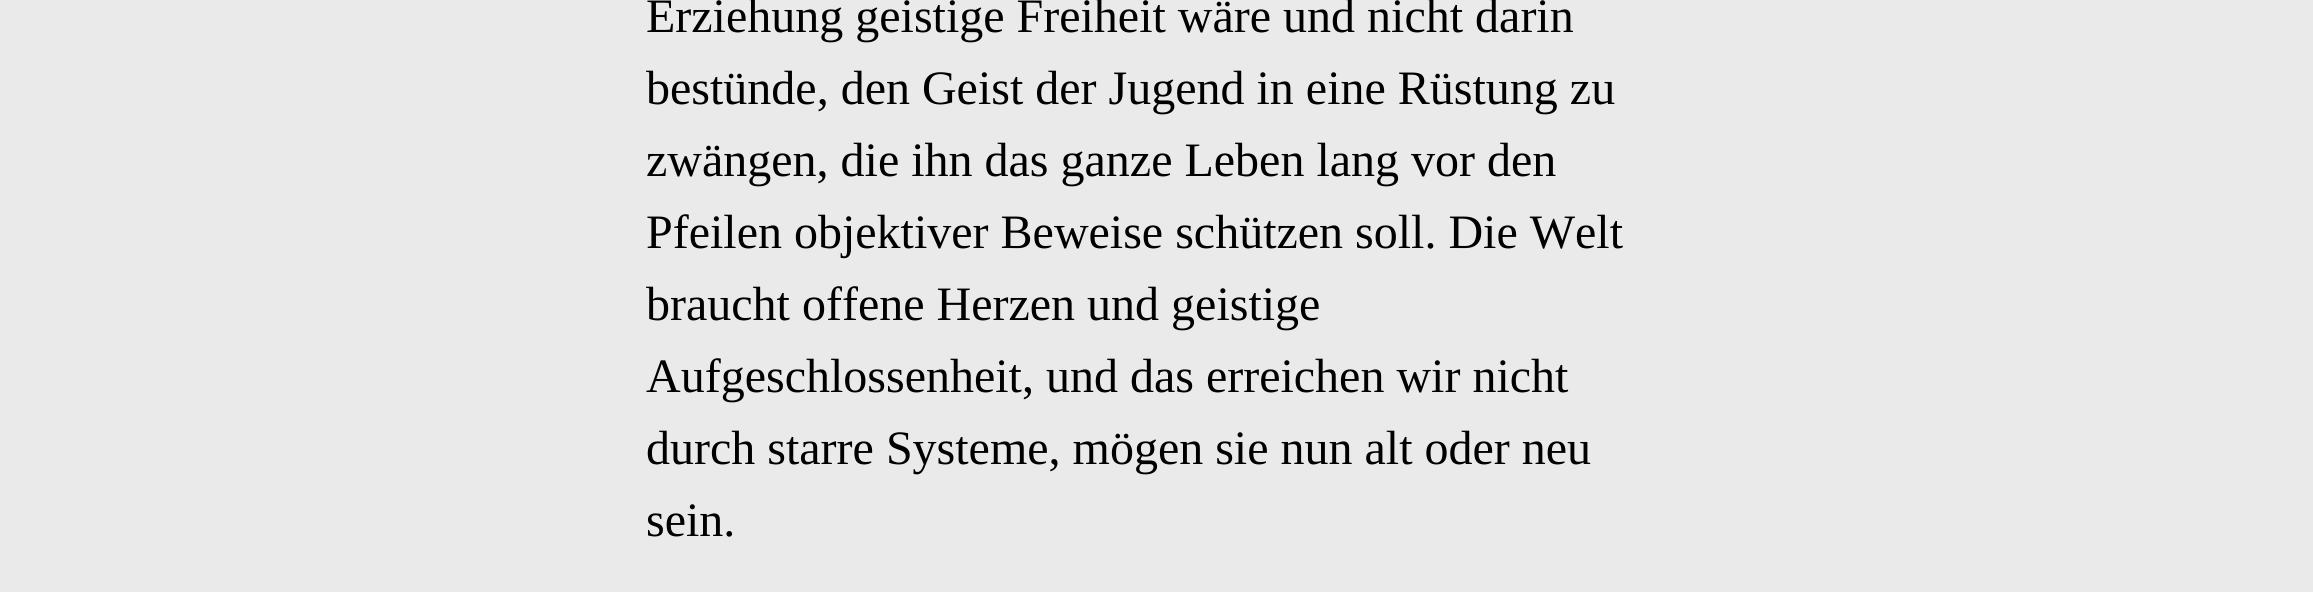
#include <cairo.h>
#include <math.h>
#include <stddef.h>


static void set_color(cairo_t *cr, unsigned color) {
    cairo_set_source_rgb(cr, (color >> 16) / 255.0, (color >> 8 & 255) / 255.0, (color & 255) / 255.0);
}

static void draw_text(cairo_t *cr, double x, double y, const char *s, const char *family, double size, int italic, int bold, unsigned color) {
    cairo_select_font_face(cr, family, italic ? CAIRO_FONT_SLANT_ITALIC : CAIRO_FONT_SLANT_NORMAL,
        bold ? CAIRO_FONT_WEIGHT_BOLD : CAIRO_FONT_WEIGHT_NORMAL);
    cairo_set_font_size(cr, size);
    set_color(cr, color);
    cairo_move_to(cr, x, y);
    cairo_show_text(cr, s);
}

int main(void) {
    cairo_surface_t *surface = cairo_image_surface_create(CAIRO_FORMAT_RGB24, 2313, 592);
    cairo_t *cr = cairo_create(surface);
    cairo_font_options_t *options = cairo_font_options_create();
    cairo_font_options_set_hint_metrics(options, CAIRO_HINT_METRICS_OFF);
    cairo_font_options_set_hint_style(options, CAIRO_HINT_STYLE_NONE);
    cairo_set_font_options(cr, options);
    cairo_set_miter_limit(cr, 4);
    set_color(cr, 0xEAEAEA);
    cairo_paint(cr);
    draw_text(cr, 646, 32, "Erziehung geistige Freiheit wäre und nicht darin", "Liberation Serif", 48, 0, 0, 0x000000);
    draw_text(cr, 646, 104, "bestünde, den Geist der Jugend in eine Rüstung zu", "Liberation Serif", 48, 0, 0, 0x000000);
    draw_text(cr, 646, 176, "zwängen, die ihn das ganze Leben lang vor den", "Liberation Serif", 48, 0, 0, 0x000000);
    draw_text(cr, 646, 248, "Pfeilen objektiver Beweise schützen soll. Die Welt", "Liberation Serif", 48, 0, 0, 0x000000);
    draw_text(cr, 646, 320, "braucht offene Herzen und geistige", "Liberation Serif", 48, 0, 0, 0x000000);
    draw_text(cr, 646, 392, "Aufgeschlossenheit, und das erreichen wir nicht", "Liberation Serif", 48, 0, 0, 0x000000);
    draw_text(cr, 646, 464, "durch starre Systeme, mögen sie nun alt oder neu", "Liberation Serif", 48, 0, 0, 0x000000);
    draw_text(cr, 646, 536, "sein.", "Liberation Serif", 48, 0, 0, 0x000000);
    cairo_surface_write_to_png(surface, "output.png");
    cairo_font_options_destroy(options);
    cairo_destroy(cr);
    cairo_surface_destroy(surface);
    return 0;
}
